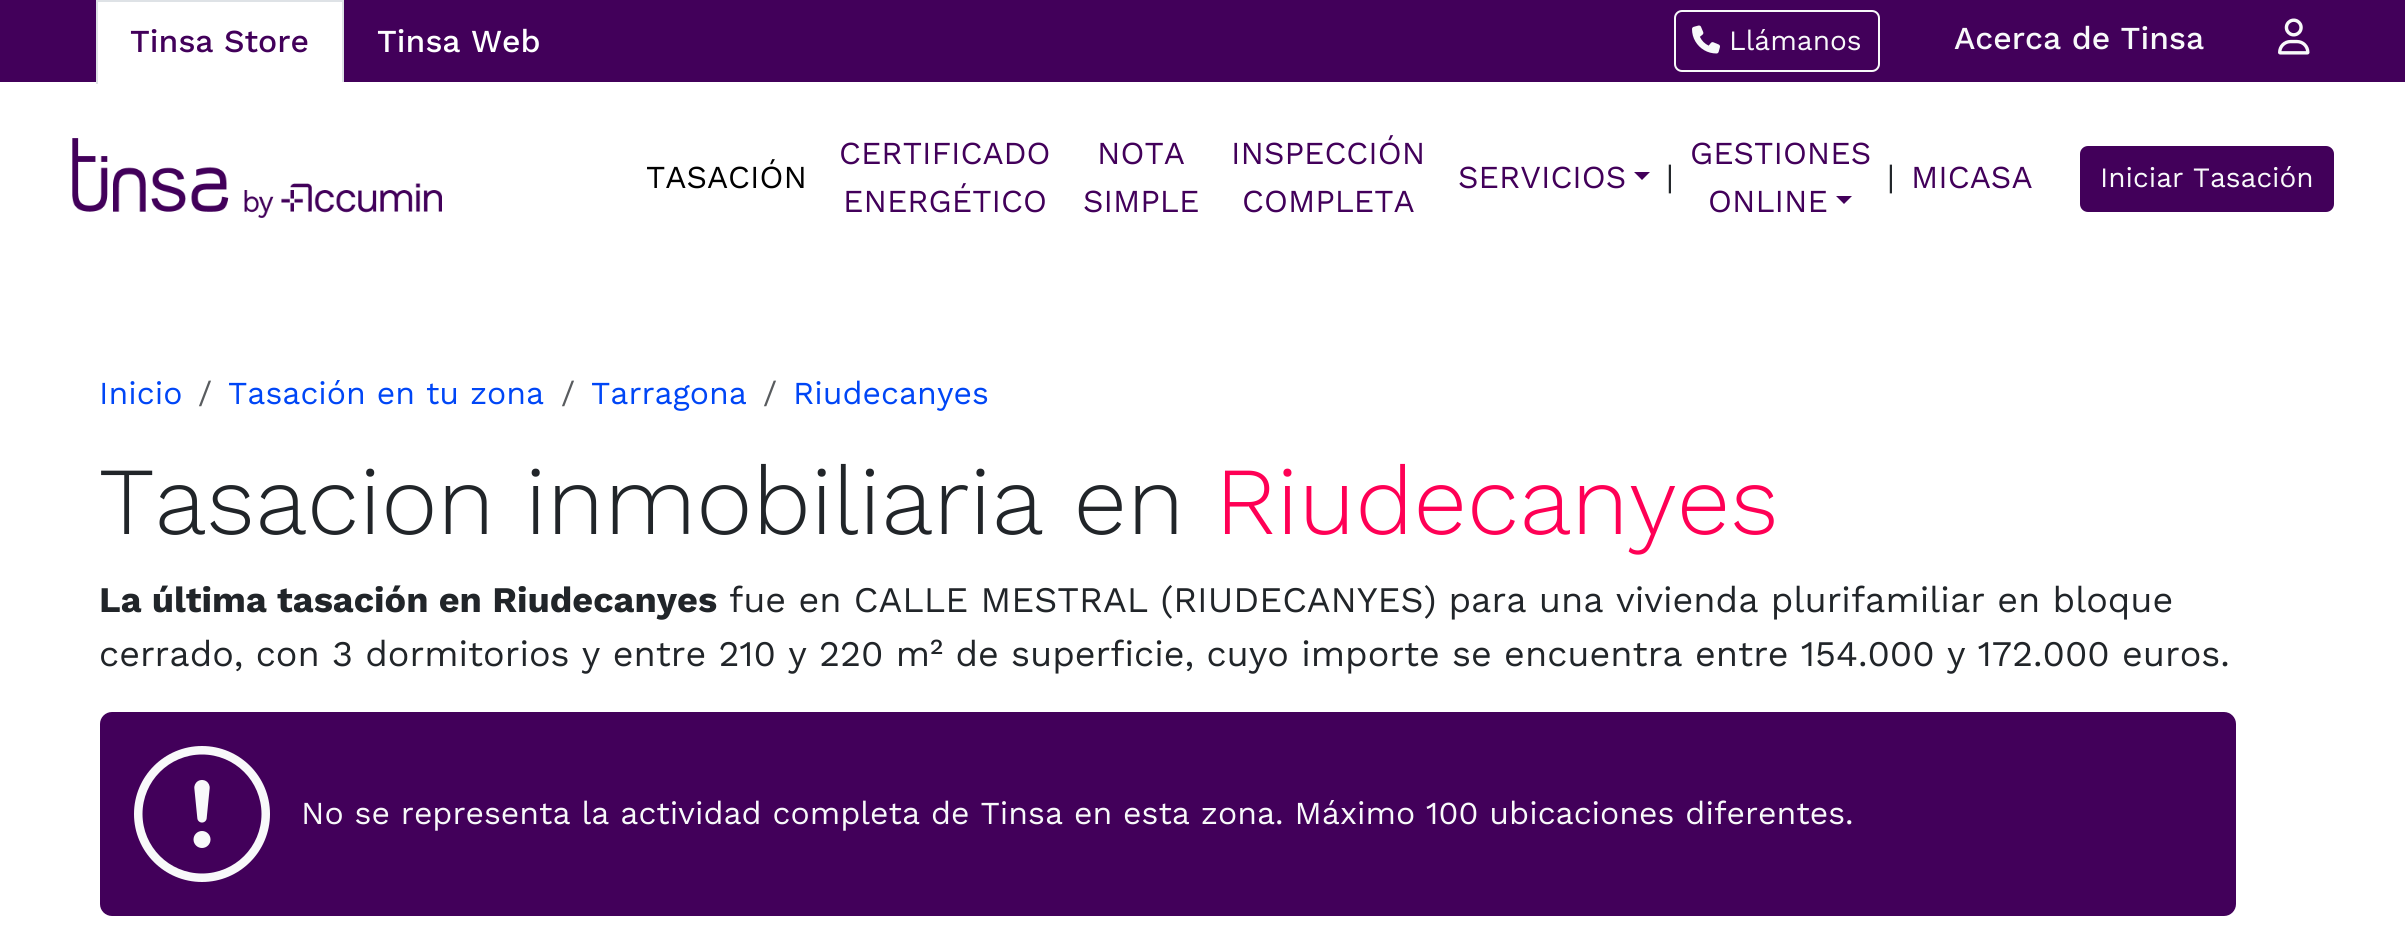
#include <cairo.h>
#include <math.h>
#include <stddef.h>


static void set_color(cairo_t *cr, unsigned color) {
    cairo_set_source_rgb(cr, (color >> 16) / 255.0, (color >> 8 & 255) / 255.0, (color & 255) / 255.0);
}

static void draw_text(cairo_t *cr, double x, double y, const char *s, const char *family, double size, int italic, int bold, unsigned color) {
    cairo_select_font_face(cr, family, italic ? CAIRO_FONT_SLANT_ITALIC : CAIRO_FONT_SLANT_NORMAL,
        bold ? CAIRO_FONT_WEIGHT_BOLD : CAIRO_FONT_WEIGHT_NORMAL);
    cairo_set_font_size(cr, size);
    set_color(cr, color);
    cairo_move_to(cr, x, y);
    cairo_show_text(cr, s);
}

static void fill_rect(cairo_t *cr, double x, double y, double w, double h, unsigned color) {
    set_color(cr, color);
    cairo_rectangle(cr, x, y, w, h);
    cairo_fill(cr);
}

static void rounded_rect(cairo_t *cr, double x, double y, double w, double h, double r) {
    cairo_new_sub_path(cr);
    cairo_arc(cr, x + w - r, y + h - r, r, 0, M_PI / 2);
    cairo_arc(cr, x + r, y + h - r, r, M_PI / 2, M_PI);
    cairo_arc(cr, x + r, y + r, r, M_PI, 1.5 * M_PI);
    cairo_arc(cr, x + w - r, y + r, r, 1.5 * M_PI, 2 * M_PI);
    cairo_close_path(cr);
}

static void draw_image(cairo_t *cr, const char *path, double x, double y, double w, double h) {
    cairo_surface_t *image = cairo_image_surface_create_from_png(path);
    cairo_save(cr);
    cairo_set_source_surface(cr, image, x, y);
    cairo_rectangle(cr, x, y, w, h);
    cairo_fill(cr);
    cairo_restore(cr);
    cairo_surface_destroy(image);
}

int main(void) {
    cairo_surface_t *surface = cairo_image_surface_create(CAIRO_FORMAT_RGB24, 2405, 940);
    cairo_t *cr = cairo_create(surface);
    cairo_font_options_t *options = cairo_font_options_create();
    cairo_font_options_set_hint_metrics(options, CAIRO_HINT_METRICS_OFF);
    cairo_font_options_set_hint_style(options, CAIRO_HINT_STYLE_NONE);
    cairo_set_font_options(cr, options);
    cairo_set_miter_limit(cr, 4);
    set_color(cr, 0xFFFFFF);
    cairo_paint(cr);
    fill_rect(cr, 0, 0, 2405, 82, 0x42005A);
    fill_rect(cr, 98, 2, 244, 80, 0xFFFFFF);
    fill_rect(cr, 96, 0, 248, 2, 0xDEE2E6);
    fill_rect(cr, 342, 0, 2, 84, 0xDEE2E6);
    fill_rect(cr, 342, 82, 2, 2, 0xFFFFFF);
    fill_rect(cr, 96, 0, 2, 84, 0xDEE2E6);
    draw_text(cr, 130, 52, "Tinsa Store", "Work Sans Medium", 32, 0, 0, 0x42005A);
    draw_text(cr, 377, 52, "Tinsa Web", "Work Sans Medium", 32, 0, 0, 0xFFFFFF);
    rounded_rect(cr, 1675, 11, 204, 60, 7);
    set_color(cr, 0xF8F9FA);
    cairo_stroke(cr);
    draw_image(cr, "assets/img1.png", 1692, 25, 28, 29);
    draw_text(cr, 1729, 50, "Llámanos", "Work Sans", 28, 0, 0, 0xF8F9FA);
    draw_text(cr, 1954, 49, "Acerca de Tinsa", "Work Sans Medium", 32, 0, 0, 0xF8F9FA);
    draw_image(cr, "assets/img2.png", 2278, 18, 32, 37);
    draw_image(cr, "assets/img3.png", 72, 138, 370, 80);
    draw_text(cr, 646, 188, "TASACIÓN", "Work Sans", 32, 0, 0, 0x000000);
    draw_text(cr, 839, 164, "CERTIFICADO", "Work Sans", 32, 0, 0, 0x42005A);
    draw_text(cr, 843, 212, "ENERGÉTICO", "Work Sans", 32, 0, 0, 0x42005A);
    draw_text(cr, 1097, 164, "NOTA", "Work Sans", 32, 0, 0, 0x42005A);
    draw_text(cr, 1083, 212, "SIMPLE", "Work Sans", 32, 0, 0, 0x42005A);
    draw_text(cr, 1231, 164, "INSPECCIÓN", "Work Sans", 32, 0, 0, 0x42005A);
    draw_text(cr, 1242, 212, "COMPLETA", "Work Sans", 32, 0, 0, 0x42005A);
    draw_text(cr, 1458, 188, "SERVICIOS", "Work Sans", 32, 0, 0, 0x42005A);
    cairo_new_path(cr);
    cairo_move_to(cr, 1634, 172);
    cairo_line_to(cr, 1650, 172);
    cairo_line_to(cr, 1642, 180);
    cairo_close_path(cr);
    cairo_fill(cr);
    draw_text(cr, 1666, 188, "|", "Work Sans", 32, 0, 0, 0x212529);
    draw_text(cr, 1690, 164, "GESTIONES", "Work Sans", 32, 0, 0, 0x42005A);
    draw_text(cr, 1708, 212, "ONLINE", "Work Sans", 32, 0, 0, 0x42005A);
    cairo_new_path(cr);
    cairo_move_to(cr, 1836, 196);
    cairo_line_to(cr, 1852, 196);
    cairo_line_to(cr, 1844, 204);
    cairo_close_path(cr);
    cairo_fill(cr);
    draw_text(cr, 1887, 188, "|", "Work Sans", 32, 0, 0, 0x212529);
    draw_text(cr, 1911, 188, "MICASA", "Work Sans", 32, 0, 0, 0x42005A);
    rounded_rect(cr, 2082, 148, 250, 62, 6);
    cairo_fill_preserve(cr);
    cairo_set_line_width(cr, 4);
    cairo_stroke(cr);
    draw_text(cr, 2100, 187, "Iniciar Tasación", "Work Sans", 28, 0, 0, 0xF8F9FA);
    draw_text(cr, 99, 404, "Inicio", "Work Sans", 32, 0, 0, 0x0046F6);
    draw_text(cr, 198, 404, "/", "Work Sans", 32, 0, 0, 0x595C5F);
    draw_text(cr, 228, 404, "Tasación en tu zona", "Work Sans", 32, 0, 0, 0x0046F6);
    draw_text(cr, 561, 404, "/", "Work Sans", 32, 0, 0, 0x595C5F);
    draw_text(cr, 591, 404, "Tarragona", "Work Sans", 32, 0, 0, 0x0046F6);
    draw_text(cr, 763, 404, "/", "Work Sans", 32, 0, 0, 0x595C5F);
    draw_text(cr, 793, 404, "Riudecanyes", "Work Sans", 32, 0, 0, 0x0046F6);
    draw_text(cr, 99, 534, "Tasacion inmobiliaria en", "Work Sans Light", 96, 0, 0, 0x212529);
    draw_text(cr, 1215, 534, "Riudecanyes", "Work Sans Light", 96, 0, 0, 0xFF0055);
    draw_text(cr, 99, 612, "La última tasación en Riudecanyes", "Work Sans", 36, 0, 1, 0x212529);
    draw_text(cr, 729, 612, "fue en CALLE MESTRAL (RIUDECANYES) para una vivienda plurifamiliar en bloque", "Work Sans", 36, 0, 0, 0x212529);
    draw_text(cr, 99, 666, "cerrado, con 3 dormitorios y entre 210 y 220 m² de superficie, cuyo importe se encuentra entre 154.000 y 172.000 euros.", "Work Sans", 36, 0, 0, 0x212529);
    set_color(cr, 0x42005A);
    rounded_rect(cr, 100, 712, 2136, 204, 12);
    cairo_fill(cr);
    draw_image(cr, "assets/img4.png", 134, 746, 136, 136);
    draw_text(cr, 301, 824, "No se representa la actividad completa de Tinsa en esta zona. Máximo 100 ubicaciones diferentes.", "Work Sans", 32, 0, 0, 0xF8F9FA);
    cairo_surface_write_to_png(surface, "output.png");
    cairo_font_options_destroy(options);
    cairo_destroy(cr);
    cairo_surface_destroy(surface);
    return 0;
}
